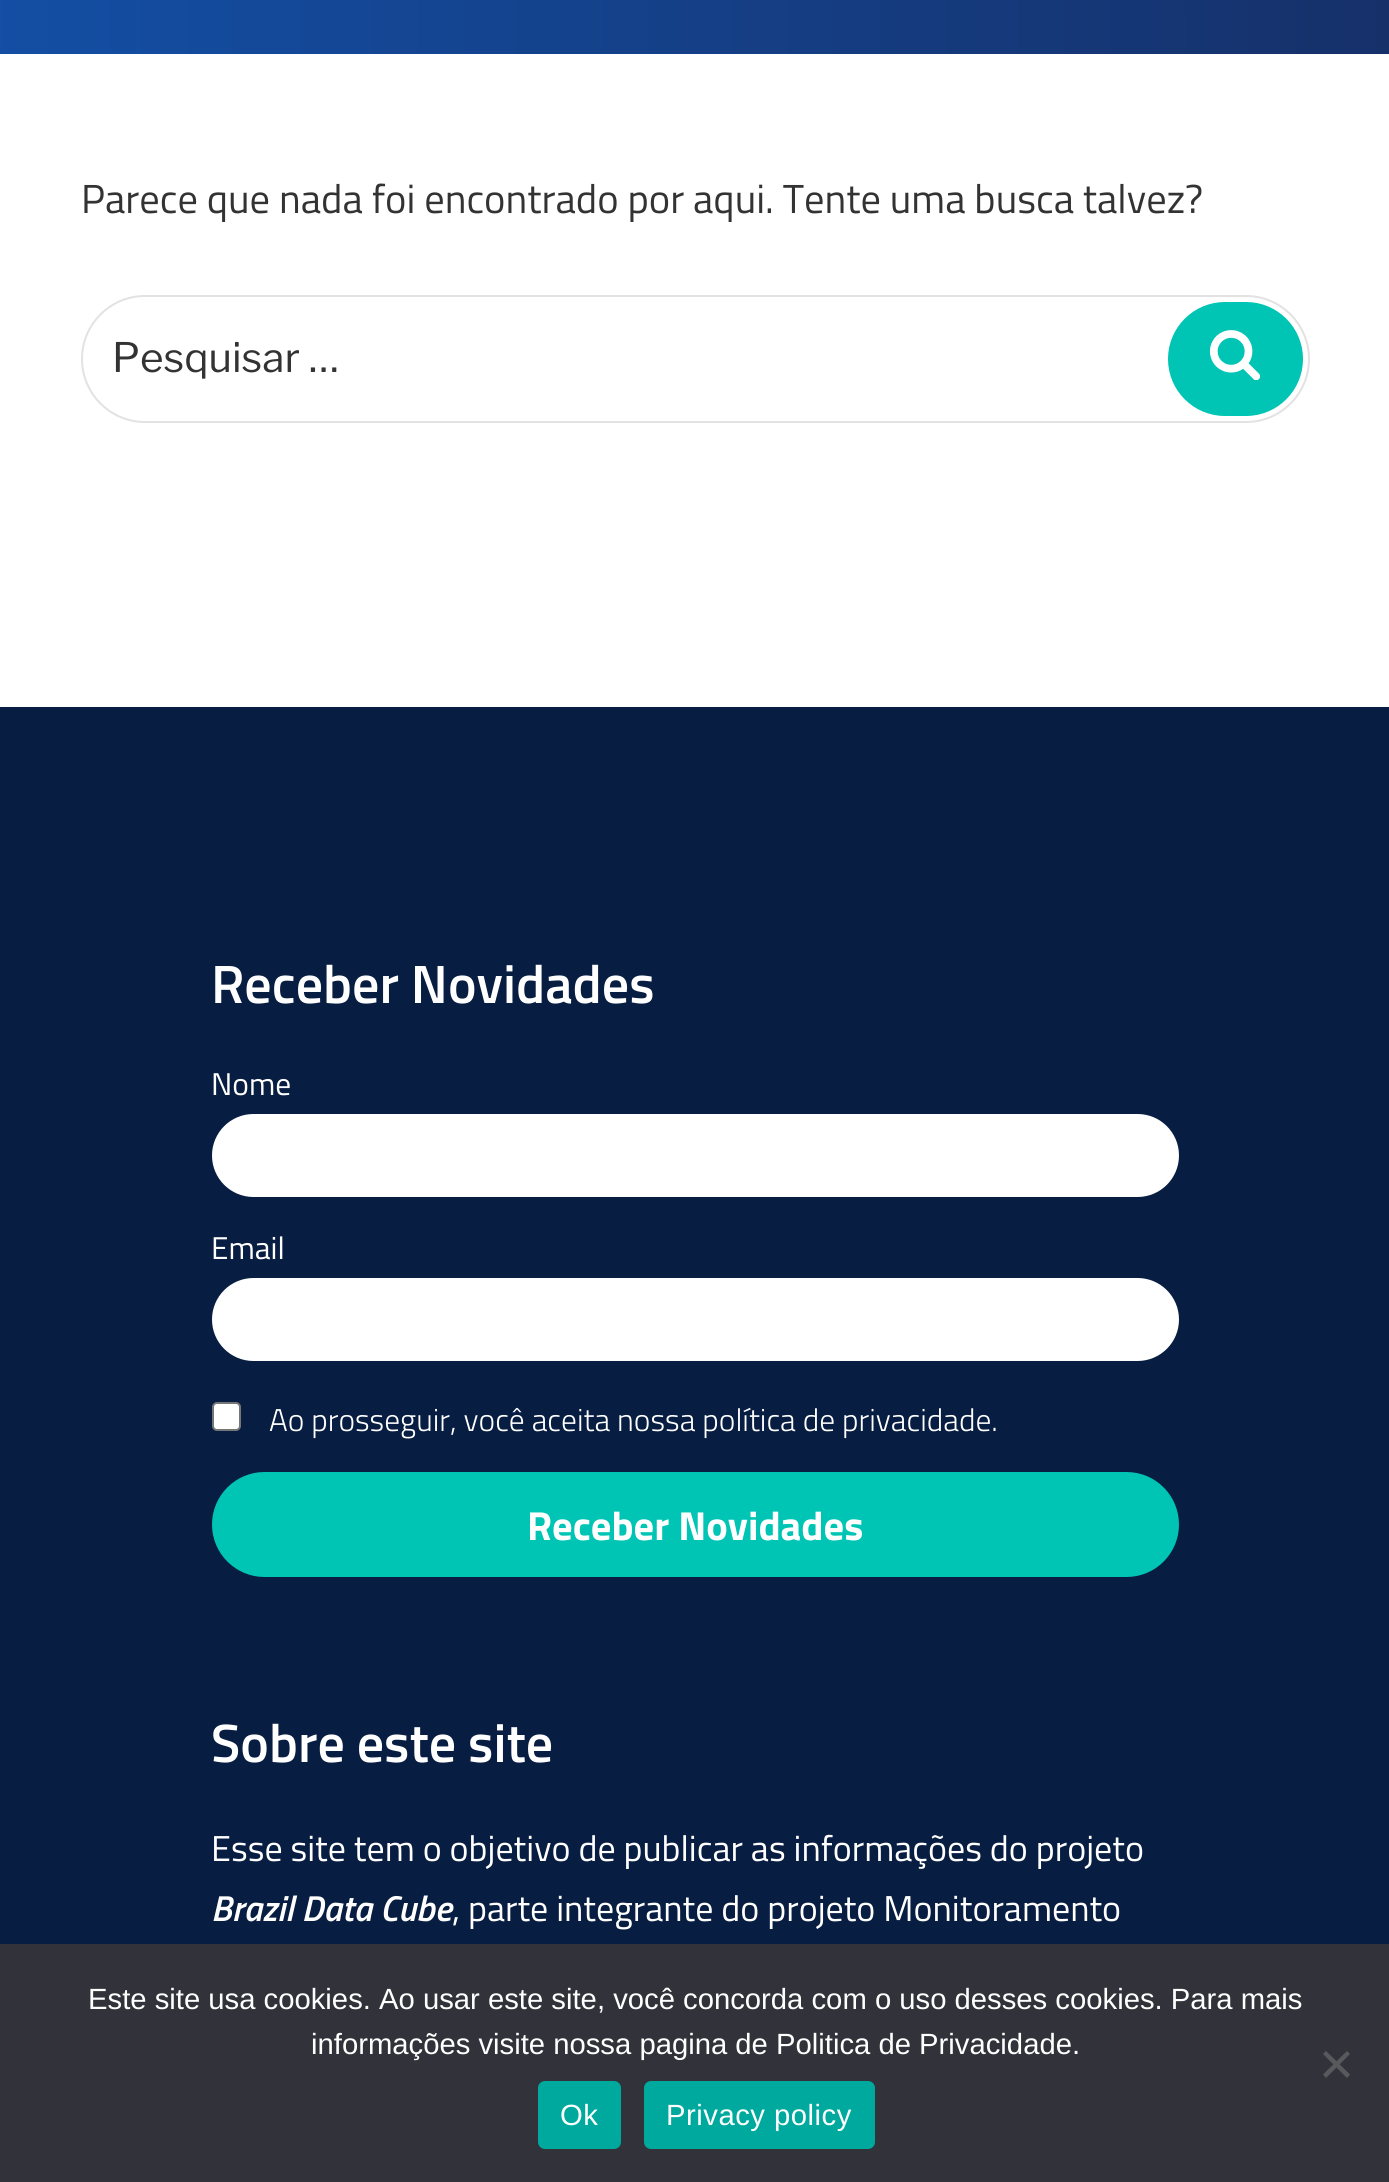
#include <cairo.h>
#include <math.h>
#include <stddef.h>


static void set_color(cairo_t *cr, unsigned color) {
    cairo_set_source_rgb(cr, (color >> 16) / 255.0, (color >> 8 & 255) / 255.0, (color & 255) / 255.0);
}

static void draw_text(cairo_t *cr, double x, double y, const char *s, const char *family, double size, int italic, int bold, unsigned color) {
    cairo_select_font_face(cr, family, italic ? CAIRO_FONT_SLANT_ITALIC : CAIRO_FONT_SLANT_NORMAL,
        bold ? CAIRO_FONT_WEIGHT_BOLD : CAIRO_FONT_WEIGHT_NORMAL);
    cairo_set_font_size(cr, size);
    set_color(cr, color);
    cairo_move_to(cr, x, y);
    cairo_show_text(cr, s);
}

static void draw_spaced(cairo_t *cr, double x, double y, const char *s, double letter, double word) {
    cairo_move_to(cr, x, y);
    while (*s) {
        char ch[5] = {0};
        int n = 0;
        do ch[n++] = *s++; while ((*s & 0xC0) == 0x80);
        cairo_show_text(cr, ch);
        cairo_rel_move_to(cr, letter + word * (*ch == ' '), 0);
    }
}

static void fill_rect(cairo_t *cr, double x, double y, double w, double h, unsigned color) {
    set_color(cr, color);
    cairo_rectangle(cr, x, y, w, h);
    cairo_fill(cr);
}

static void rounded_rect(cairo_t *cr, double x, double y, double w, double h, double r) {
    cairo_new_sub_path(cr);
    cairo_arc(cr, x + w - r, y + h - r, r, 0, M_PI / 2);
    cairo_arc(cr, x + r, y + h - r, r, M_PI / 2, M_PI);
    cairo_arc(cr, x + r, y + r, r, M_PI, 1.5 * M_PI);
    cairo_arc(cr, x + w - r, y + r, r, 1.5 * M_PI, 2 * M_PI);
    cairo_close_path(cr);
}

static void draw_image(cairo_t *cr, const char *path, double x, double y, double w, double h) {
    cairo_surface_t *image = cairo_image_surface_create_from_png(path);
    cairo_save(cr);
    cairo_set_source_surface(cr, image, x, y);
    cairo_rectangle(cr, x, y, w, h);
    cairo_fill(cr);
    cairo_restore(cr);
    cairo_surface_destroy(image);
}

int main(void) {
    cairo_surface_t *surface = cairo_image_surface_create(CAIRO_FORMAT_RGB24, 1389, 2182);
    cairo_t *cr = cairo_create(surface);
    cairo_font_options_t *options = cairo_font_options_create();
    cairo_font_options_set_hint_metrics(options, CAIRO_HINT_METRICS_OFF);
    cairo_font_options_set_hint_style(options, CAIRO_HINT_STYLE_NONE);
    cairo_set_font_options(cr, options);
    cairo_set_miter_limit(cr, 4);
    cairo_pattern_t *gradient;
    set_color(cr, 0xFFFFFF);
    cairo_paint(cr);
    gradient = cairo_pattern_create_linear(-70, 131, 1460, 130);
    cairo_pattern_add_color_stop_rgba(gradient, 0, 0.075, 0.314, 0.655, 1);
    cairo_pattern_add_color_stop_rgba(gradient, 1, 0.086, 0.184, 0.404, 1);
    cairo_set_source(cr, gradient);
    cairo_pattern_destroy(gradient);
    cairo_rectangle(cr, 0, 0, 1389, 54);
    cairo_fill(cr);
    draw_text(cr, 81, 213, "Parece que nada foi encontrado por aqui. Tente uma busca talvez?", "Titillium Web", 40.5, 0, 0, 0x333333);
    rounded_rect(cr, 82, 296, 1227, 126, 63);
    set_color(cr, 0xE2E2E2);
    cairo_stroke(cr);
    draw_text(cr, 112, 372, "Pesquisar …", "Libre Franklin Thin", 40.5, 0, 0, 0x333333);
    set_color(cr, 0x00C4B4);
    rounded_rect(cr, 1168, 302, 135, 114, 57);
    cairo_fill(cr);
    draw_image(cr, "assets/img1.png", 1209, 330, 52, 50);
    fill_rect(cr, 0, 707, 1389, 1237, 0x071D41);
    draw_text(cr, 211, 1003, "Receber Novidades", "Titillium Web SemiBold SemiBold", 54, 0, 0, 0xFFFFFF);
    draw_text(cr, 211, 1095, "Nome", "Titillium Web", 31.5, 0, 0, 0xFFFFFF);
    rounded_rect(cr, 212, 1114, 967, 83, 41.5);
    cairo_fill(cr);
    draw_text(cr, 211, 1259, "Email", "Titillium Web", 31.5, 0, 0, 0xFFFFFF);
    rounded_rect(cr, 212, 1278, 967, 83, 41.5);
    cairo_fill(cr);
    rounded_rect(cr, 213, 1403, 27, 27, 4);
    cairo_fill_preserve(cr);
    set_color(cr, 0x767676);
    cairo_stroke(cr);
    draw_text(cr, 269, 1431, "Ao prosseguir, você aceita nossa política de privacidade.", "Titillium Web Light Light", 31.5, 0, 0, 0xFFFFFF);
    set_color(cr, 0x00C4B4);
    rounded_rect(cr, 212, 1472, 967, 105, 52.5);
    cairo_fill(cr);
    draw_text(cr, 527, 1540, "Receber Novidades", "Titillium Web", 40.5, 0, 1, 0xFFFFFF);
    draw_text(cr, 211, 1762, "Sobre este site", "Titillium Web SemiBold SemiBold", 54, 0, 0, 0xFFFFFF);
    draw_text(cr, 211, 1861, "Esse site tem o objetivo de publicar as informações do projeto", "Titillium Web", 36, 0, 0, 0xFFFFFF);
    draw_text(cr, 211, 1921, "Brazil Data Cube", "Titillium Web SemiBold SemiBold", 36, 1, 0, 0xFFFFFF);
    draw_text(cr, 452, 1921, ", parte integrante do projeto Monitoramento", "Titillium Web", 36, 0, 0, 0xFFFFFF);
    fill_rect(cr, 0, 1944, 1389, 238, 0x32323A);
    draw_text(cr, 88, 2009, "Este site usa cookies. Ao usar este site, você concorda com o uso desses cookies. Para mais", "Liberation Sans", 29.25, 0, 0, 0xFFFFFF);
    draw_text(cr, 311, 2054, "informações visite nossa pagina de Politica de Privacidade.", "Liberation Sans", 29.25, 0, 0, 0xFFFFFF);
    set_color(cr, 0x59595D);
    cairo_new_path(cr);
    cairo_move_to(cr, 1347, 2051);
    cairo_line_to(cr, 1350, 2054);
    cairo_line_to(cr, 1326, 2078);
    cairo_line_to(cr, 1323, 2074.5);
    cairo_close_path(cr);
    cairo_fill(cr);
    cairo_new_path(cr);
    cairo_move_to(cr, 1323, 2054);
    cairo_line_to(cr, 1326, 2051);
    cairo_line_to(cr, 1350, 2074.5);
    cairo_line_to(cr, 1347, 2078);
    cairo_close_path(cr);
    cairo_fill(cr);
    set_color(cr, 0x00A99D);
    rounded_rect(cr, 538, 2081, 83, 68, 7);
    cairo_fill(cr);
    set_color(cr, 0xFFFFFF);
    draw_spaced(cr, 560, 2125, "Ok", 0.5, 0);
    set_color(cr, 0x00A99D);
    rounded_rect(cr, 644, 2081, 231, 68, 7);
    cairo_fill(cr);
    set_color(cr, 0xFFFFFF);
    draw_spaced(cr, 666, 2125, "Privacy policy", 0.5, 0);
    cairo_surface_write_to_png(surface, "output.png");
    cairo_font_options_destroy(options);
    cairo_destroy(cr);
    cairo_surface_destroy(surface);
    return 0;
}
